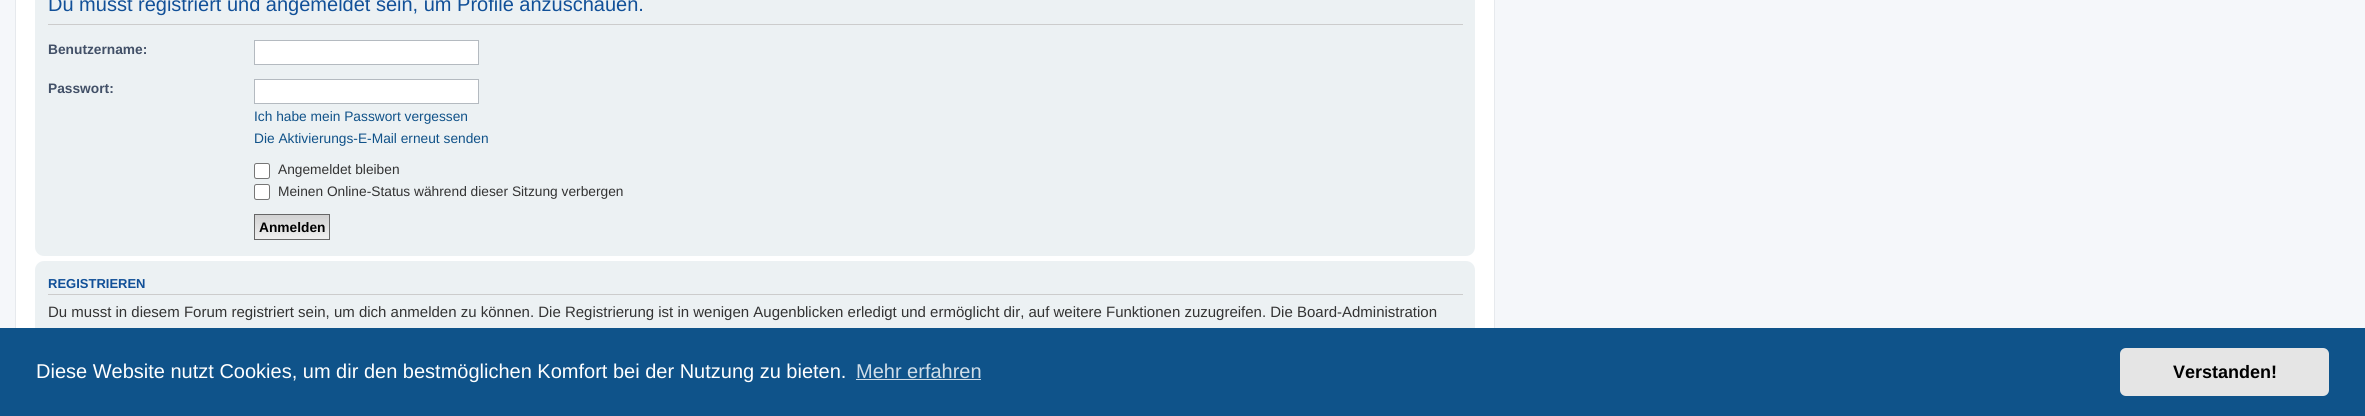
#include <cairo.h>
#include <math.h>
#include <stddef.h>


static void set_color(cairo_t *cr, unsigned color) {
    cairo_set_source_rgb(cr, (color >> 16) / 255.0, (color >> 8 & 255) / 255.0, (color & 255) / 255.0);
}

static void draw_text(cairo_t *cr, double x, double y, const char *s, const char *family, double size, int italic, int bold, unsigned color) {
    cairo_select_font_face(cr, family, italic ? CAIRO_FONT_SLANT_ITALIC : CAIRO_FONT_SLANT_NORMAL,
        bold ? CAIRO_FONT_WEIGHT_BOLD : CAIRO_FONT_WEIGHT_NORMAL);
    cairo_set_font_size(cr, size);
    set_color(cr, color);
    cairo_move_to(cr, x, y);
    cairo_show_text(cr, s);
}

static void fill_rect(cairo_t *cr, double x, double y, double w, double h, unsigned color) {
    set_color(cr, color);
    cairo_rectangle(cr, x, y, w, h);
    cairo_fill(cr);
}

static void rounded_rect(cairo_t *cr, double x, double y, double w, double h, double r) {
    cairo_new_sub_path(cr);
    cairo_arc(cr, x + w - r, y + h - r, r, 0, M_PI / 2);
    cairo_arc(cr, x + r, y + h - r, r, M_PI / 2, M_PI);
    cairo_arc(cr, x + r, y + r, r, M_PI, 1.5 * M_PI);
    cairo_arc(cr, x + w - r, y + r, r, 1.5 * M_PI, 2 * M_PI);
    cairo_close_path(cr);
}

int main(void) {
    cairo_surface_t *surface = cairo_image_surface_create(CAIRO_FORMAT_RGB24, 2365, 416);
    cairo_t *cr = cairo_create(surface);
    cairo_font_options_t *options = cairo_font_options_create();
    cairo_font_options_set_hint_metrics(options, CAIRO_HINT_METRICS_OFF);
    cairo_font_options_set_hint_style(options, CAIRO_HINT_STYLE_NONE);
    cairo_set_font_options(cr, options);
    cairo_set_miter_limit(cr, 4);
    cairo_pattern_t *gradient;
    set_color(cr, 0xF5F7FA);
    cairo_paint(cr);
    fill_rect(cr, 16, 0, 1478, 328, 0xFFFFFF);
    cairo_rectangle(cr, 15.5, -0.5, 1479, 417);
    set_color(cr, 0xE6E9ED);
    cairo_set_line_width(cr, 1);
    cairo_stroke(cr);
    set_color(cr, 0xECF1F3);
    rounded_rect(cr, 35, -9, 1440, 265, 9);
    cairo_fill(cr);
    fill_rect(cr, 48, 24, 1415, 1, 0xCCCCCC);
    draw_text(cr, 48, 11, "Du musst registriert und angemeldet sein, um Profile anzuschauen.", "Liberation Sans", 20, 0, 0, 0x115098);
    draw_text(cr, 48, 54, "Benutzername:", "Liberation Sans", 13.75, 0, 1, 0x425067);
    set_color(cr, 0xFFFFFF);
    cairo_rectangle(cr, 254.5, 40.5, 224, 24);
    cairo_fill_preserve(cr);
    set_color(cr, 0xB4BAC0);
    cairo_stroke(cr);
    draw_text(cr, 48, 93, "Passwort:", "Liberation Sans", 13.75, 0, 1, 0x425067);
    set_color(cr, 0xFFFFFF);
    cairo_rectangle(cr, 254.5, 79.5, 224, 24);
    cairo_fill_preserve(cr);
    set_color(cr, 0xB4BAC0);
    cairo_stroke(cr);
    draw_text(cr, 254, 121, "Ich habe mein Passwort vergessen", "Liberation Sans", 13.75, 0, 0, 0x105289);
    draw_text(cr, 254, 143, "Die Aktivierungs-E-Mail erneut senden", "Liberation Sans", 13.75, 0, 0, 0x105289);
    set_color(cr, 0xFFFFFF);
    rounded_rect(cr, 254.5, 163.5, 15, 15, 2);
    cairo_fill_preserve(cr);
    set_color(cr, 0x767676);
    cairo_stroke(cr);
    draw_text(cr, 278, 174, "Angemeldet bleiben", "Liberation Sans", 13.75, 0, 0, 0x333333);
    set_color(cr, 0xFFFFFF);
    rounded_rect(cr, 254.5, 184.5, 15, 15, 2);
    cairo_fill_preserve(cr);
    set_color(cr, 0x767676);
    cairo_stroke(cr);
    draw_text(cr, 278, 196, "Meinen Online-Status während dieser Sitzung verbergen", "Liberation Sans", 13.75, 0, 0, 0x333333);
    gradient = cairo_pattern_create_linear(292, 215, 292, 239);
    cairo_pattern_add_color_stop_rgba(gradient, 0, 0.824, 0.824, 0.824, 1);
    cairo_pattern_add_color_stop_rgba(gradient, 1, 0.937, 0.937, 0.937, 1);
    cairo_set_source(cr, gradient);
    cairo_pattern_destroy(gradient);
    cairo_rectangle(cr, 255, 215, 74, 24);
    cairo_fill(cr);
    cairo_rectangle(cr, 254.5, 214.5, 75, 25);
    set_color(cr, 0x666666);
    cairo_stroke(cr);
    draw_text(cr, 259, 232, "Anmelden", "Liberation Sans", 13.75, 0, 1, 0x000000);
    set_color(cr, 0xECF1F3);
    rounded_rect(cr, 35, 261, 1440, 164, 9);
    cairo_fill(cr);
    fill_rect(cr, 48, 294, 1415, 1, 0xCCCCCC);
    draw_text(cr, 48, 288, "REGISTRIEREN", "Liberation Sans", 13, 0, 1, 0x115098);
    draw_text(cr, 48, 317, "Du musst in diesem Forum registriert sein, um dich anmelden zu können. Die Registrierung ist in wenigen Augenblicken erledigt und ermöglicht dir, auf weitere Funktionen zuzugreifen. Die Board-Administration", "Liberation Sans", 15, 0, 0, 0x333333);
    fill_rect(cr, 0, 328, 2365, 88, 0x0F538A);
    draw_text(cr, 36, 378, "Diese Website nutzt Cookies, um dir den bestmöglichen Komfort bei der Nutzung zu bieten.", "Liberation Sans", 20, 0, 0, 0xFFFFFF);
    draw_text(cr, 856, 378, "Mehr erfahren", "Liberation Sans", 20, 0, 0, 0xCFDDE8);
    fill_rect(cr, 856, 379, 125, 1, 0xCFDDE8);
    set_color(cr, 0xE5E5E5);
    rounded_rect(cr, 2120, 348, 209, 48, 6);
    cairo_fill(cr);
    draw_text(cr, 2173, 378, "Verstanden!", "Liberation Sans", 18, 0, 1, 0x000000);
    cairo_surface_write_to_png(surface, "output.png");
    cairo_font_options_destroy(options);
    cairo_destroy(cr);
    cairo_surface_destroy(surface);
    return 0;
}
